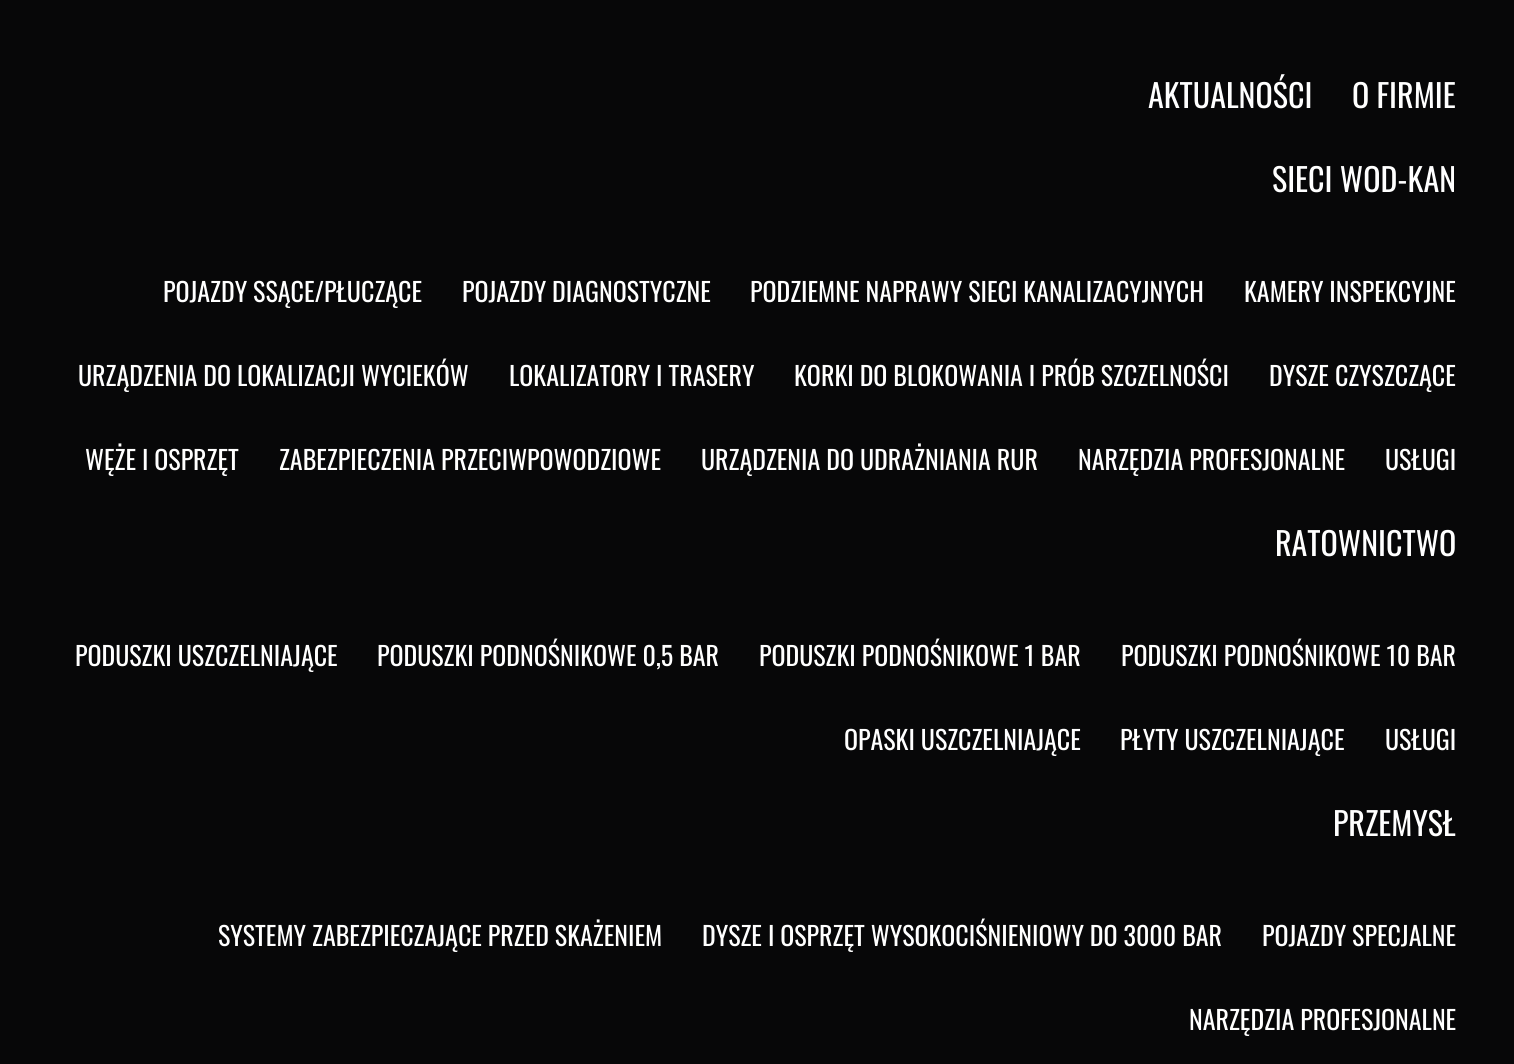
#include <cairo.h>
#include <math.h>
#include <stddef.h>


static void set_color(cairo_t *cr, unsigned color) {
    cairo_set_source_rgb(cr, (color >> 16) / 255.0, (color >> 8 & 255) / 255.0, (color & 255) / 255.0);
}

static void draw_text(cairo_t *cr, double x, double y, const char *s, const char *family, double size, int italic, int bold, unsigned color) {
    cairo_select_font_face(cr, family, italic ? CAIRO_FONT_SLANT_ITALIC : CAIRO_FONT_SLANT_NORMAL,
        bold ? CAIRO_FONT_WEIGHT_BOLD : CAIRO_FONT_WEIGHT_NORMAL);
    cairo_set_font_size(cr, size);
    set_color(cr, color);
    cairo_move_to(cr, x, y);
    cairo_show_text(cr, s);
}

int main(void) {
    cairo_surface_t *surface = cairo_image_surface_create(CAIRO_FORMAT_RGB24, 1514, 1064);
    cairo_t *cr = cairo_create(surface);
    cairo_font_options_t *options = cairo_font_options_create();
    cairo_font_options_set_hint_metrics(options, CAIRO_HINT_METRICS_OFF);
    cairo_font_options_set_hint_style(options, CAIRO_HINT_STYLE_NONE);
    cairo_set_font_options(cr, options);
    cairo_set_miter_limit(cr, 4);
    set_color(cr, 0x070708);
    cairo_paint(cr);
    draw_text(cr, 1148, 108, "AKTUALNOŚCI", "Oswald", 32, 0, 0, 0xFFFFFF);
    draw_text(cr, 1352, 108, "O FIRMIE", "Oswald", 32, 0, 0, 0xFFFFFF);
    draw_text(cr, 1272, 192, "SIECI WOD-KAN", "Oswald", 32, 0, 0, 0xFFFFFF);
    draw_text(cr, 163, 302, "POJAZDY SSĄCE/PŁUCZĄCE", "Oswald", 26, 0, 0, 0xFFFFFF);
    draw_text(cr, 462, 302, "POJAZDY DIAGNOSTYCZNE", "Oswald", 26, 0, 0, 0xFFFFFF);
    draw_text(cr, 750, 302, "PODZIEMNE NAPRAWY SIECI KANALIZACYJNYCH", "Oswald", 26, 0, 0, 0xFFFFFF);
    draw_text(cr, 1244, 302, "KAMERY INSPEKCYJNE", "Oswald", 26, 0, 0, 0xFFFFFF);
    draw_text(cr, 78, 386, "URZĄDZENIA DO LOKALIZACJI WYCIEKÓW", "Oswald", 26, 0, 0, 0xFFFFFF);
    draw_text(cr, 509, 386, "LOKALIZATORY I TRASERY", "Oswald", 26, 0, 0, 0xFFFFFF);
    draw_text(cr, 794, 386, "KORKI DO BLOKOWANIA I PRÓB SZCZELNOŚCI", "Oswald", 26, 0, 0, 0xFFFFFF);
    draw_text(cr, 1269, 386, "DYSZE CZYSZCZĄCE", "Oswald", 26, 0, 0, 0xFFFFFF);
    draw_text(cr, 85, 470, "WĘŻE I OSPRZĘT", "Oswald", 26, 0, 0, 0xFFFFFF);
    draw_text(cr, 279, 470, "ZABEZPIECZENIA PRZECIWPOWODZIOWE", "Oswald", 26, 0, 0, 0xFFFFFF);
    draw_text(cr, 701, 470, "URZĄDZENIA DO UDRAŻNIANIA RUR", "Oswald", 26, 0, 0, 0xFFFFFF);
    draw_text(cr, 1078, 470, "NARZĘDZIA PROFESJONALNE", "Oswald", 26, 0, 0, 0xFFFFFF);
    draw_text(cr, 1385, 470, "USŁUGI", "Oswald", 26, 0, 0, 0xFFFFFF);
    draw_text(cr, 1275, 556, "RATOWNICTWO", "Oswald", 32, 0, 0, 0xFFFFFF);
    draw_text(cr, 75, 666, "PODUSZKI USZCZELNIAJĄCE", "Oswald", 26, 0, 0, 0xFFFFFF);
    draw_text(cr, 377, 666, "PODUSZKI PODNOŚNIKOWE 0,5 BAR", "Oswald", 26, 0, 0, 0xFFFFFF);
    draw_text(cr, 759, 666, "PODUSZKI PODNOŚNIKOWE 1 BAR", "Oswald", 26, 0, 0, 0xFFFFFF);
    draw_text(cr, 1121, 666, "PODUSZKI PODNOŚNIKOWE 10 BAR", "Oswald", 26, 0, 0, 0xFFFFFF);
    draw_text(cr, 844, 750, "OPASKI USZCZELNIAJĄCE", "Oswald", 26, 0, 0, 0xFFFFFF);
    draw_text(cr, 1120, 750, "PŁYTY USZCZELNIAJĄCE", "Oswald", 26, 0, 0, 0xFFFFFF);
    draw_text(cr, 1385, 750, "USŁUGI", "Oswald", 26, 0, 0, 0xFFFFFF);
    draw_text(cr, 1333, 836, "PRZEMYSŁ", "Oswald", 32, 0, 0, 0xFFFFFF);
    draw_text(cr, 218, 946, "SYSTEMY ZABEZPIECZAJĄCE PRZED SKAŻENIEM", "Oswald", 26, 0, 0, 0xFFFFFF);
    draw_text(cr, 702, 946, "DYSZE I OSPRZĘT WYSOKOCIŚNIENIOWY DO 3000 BAR", "Oswald", 26, 0, 0, 0xFFFFFF);
    draw_text(cr, 1262, 946, "POJAZDY SPECJALNE", "Oswald", 26, 0, 0, 0xFFFFFF);
    draw_text(cr, 1189, 1030, "NARZĘDZIA PROFESJONALNE", "Oswald", 26, 0, 0, 0xFFFFFF);
    cairo_surface_write_to_png(surface, "output.png");
    cairo_font_options_destroy(options);
    cairo_destroy(cr);
    cairo_surface_destroy(surface);
    return 0;
}
